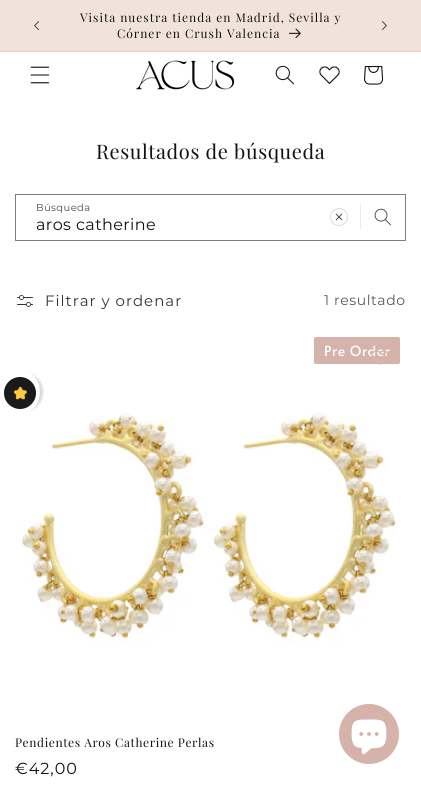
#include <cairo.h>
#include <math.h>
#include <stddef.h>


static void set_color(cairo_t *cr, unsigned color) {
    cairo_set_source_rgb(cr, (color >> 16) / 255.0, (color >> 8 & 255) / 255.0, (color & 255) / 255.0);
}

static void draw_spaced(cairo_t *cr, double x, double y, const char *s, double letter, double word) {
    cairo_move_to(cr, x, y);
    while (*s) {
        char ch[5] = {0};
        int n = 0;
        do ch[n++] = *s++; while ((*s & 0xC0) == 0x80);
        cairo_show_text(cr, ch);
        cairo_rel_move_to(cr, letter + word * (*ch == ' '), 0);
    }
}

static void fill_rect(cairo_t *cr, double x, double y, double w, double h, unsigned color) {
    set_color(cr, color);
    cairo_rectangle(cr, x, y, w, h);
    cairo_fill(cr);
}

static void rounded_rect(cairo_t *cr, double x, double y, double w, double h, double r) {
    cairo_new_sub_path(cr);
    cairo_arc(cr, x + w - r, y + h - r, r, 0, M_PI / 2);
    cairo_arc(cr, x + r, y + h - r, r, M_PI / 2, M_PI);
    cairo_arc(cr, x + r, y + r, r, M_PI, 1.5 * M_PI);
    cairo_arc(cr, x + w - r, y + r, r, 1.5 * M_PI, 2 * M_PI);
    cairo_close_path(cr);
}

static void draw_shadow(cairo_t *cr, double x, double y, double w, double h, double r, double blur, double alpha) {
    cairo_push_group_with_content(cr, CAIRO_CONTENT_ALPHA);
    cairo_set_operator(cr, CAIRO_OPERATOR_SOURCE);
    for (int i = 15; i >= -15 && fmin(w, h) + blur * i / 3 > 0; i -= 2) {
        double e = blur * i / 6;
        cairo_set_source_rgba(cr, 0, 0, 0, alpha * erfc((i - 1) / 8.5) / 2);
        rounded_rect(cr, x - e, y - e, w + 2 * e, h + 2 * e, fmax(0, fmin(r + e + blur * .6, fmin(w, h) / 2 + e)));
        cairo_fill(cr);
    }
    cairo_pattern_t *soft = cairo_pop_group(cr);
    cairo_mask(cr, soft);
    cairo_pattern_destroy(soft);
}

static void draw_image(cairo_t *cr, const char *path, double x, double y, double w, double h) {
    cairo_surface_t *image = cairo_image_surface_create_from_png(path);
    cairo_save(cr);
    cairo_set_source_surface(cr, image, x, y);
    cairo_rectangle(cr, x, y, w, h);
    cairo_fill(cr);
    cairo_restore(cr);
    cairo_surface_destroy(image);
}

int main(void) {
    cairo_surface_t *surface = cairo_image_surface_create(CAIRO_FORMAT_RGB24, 421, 785);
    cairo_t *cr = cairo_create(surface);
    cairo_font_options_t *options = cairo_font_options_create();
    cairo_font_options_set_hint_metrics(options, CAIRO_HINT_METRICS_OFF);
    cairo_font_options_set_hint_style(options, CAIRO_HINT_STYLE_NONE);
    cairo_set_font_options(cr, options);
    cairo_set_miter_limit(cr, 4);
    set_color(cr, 0xFFFFFF);
    cairo_paint(cr);
    fill_rect(cr, 0, 0, 421, 51, 0xF2E3DA);
    fill_rect(cr, 0, 51, 421, 1, 0xE0D2CA);
    draw_image(cr, "assets/img1.png", 34, 21, 5, 9);
    cairo_select_font_face(cr, "Playfair Display", CAIRO_FONT_SLANT_NORMAL, CAIRO_FONT_WEIGHT_NORMAL);
    cairo_set_font_size(cr, 12);
    set_color(cr, 0x121212);
    draw_spaced(cr, 80, 22, "Visita nuestra tienda en Madrid, Sevilla y", 1, 0);
    draw_spaced(cr, 117, 38, "Córner en Crush Valencia", 1, 0);
    draw_image(cr, "assets/img2.png", 289, 28, 12, 11);
    draw_image(cr, "assets/img3.png", 382, 21, 5, 9);
    draw_image(cr, "assets/img4.png", 30, 66, 20, 18);
    draw_image(cr, "assets/img5.png", 136, 60, 99, 30);
    draw_image(cr, "assets/img6.png", 275, 65, 19, 20);
    draw_image(cr, "assets/img7.png", 319, 66, 21, 19);
    draw_image(cr, "assets/img8.png", 364, 66, 20, 19);
    cairo_set_font_size(cr, 20);
    draw_spaced(cr, 96, 159, "Resultados de búsqueda", 0.6, 0);
    draw_image(cr, "assets/img9.png", 330, 208, 18, 18);
    fill_rect(cr, 360, 204, 1, 26, 0xECECEC);
    draw_image(cr, "assets/img10.png", 374, 208, 17, 18);
    cairo_rectangle(cr, 15.5, 194.5, 390, 46);
    set_color(cr, 0x7D7D7D);
    cairo_set_line_width(cr, 1);
    cairo_stroke(cr);
    cairo_select_font_face(cr, "Montserrat", CAIRO_FONT_SLANT_NORMAL, CAIRO_FONT_WEIGHT_NORMAL);
    cairo_set_font_size(cr, 10);
    set_color(cr, 0x4D4D4D);
    draw_spaced(cr, 36, 211, "Búsqueda", 0.4, 0);
    cairo_set_font_size(cr, 16);
    set_color(cr, 0x121212);
    draw_spaced(cr, 36, 230, "aros catherine", 0.4, 0);
    draw_image(cr, "assets/img11.png", 17, 295, 16, 12);
    cairo_set_font_size(cr, 15);
    set_color(cr, 0x363636);
    draw_spaced(cr, 45, 306, "Filtrar y ordenar", 1, 0);
    cairo_set_font_size(cr, 14);
    set_color(cr, 0x595959);
    draw_spaced(cr, 324, 305, "1 resultado", 0.6, 0);
    draw_image(cr, "assets/img12.png", 15, 331, 391, 391);
    set_color(cr, 0xD5B2AA);
    rounded_rect(cr, 314, 337, 86, 27, 2);
    cairo_fill(cr);
    cairo_select_font_face(cr, "Alata", CAIRO_FONT_SLANT_NORMAL, CAIRO_FONT_WEIGHT_NORMAL);
    set_color(cr, 0xFFFFFF);
    draw_spaced(cr, 324, 356, "Pre Order", 0.6, 0);
    cairo_select_font_face(cr, "Playfair Display", CAIRO_FONT_SLANT_NORMAL, CAIRO_FONT_WEIGHT_NORMAL);
    cairo_set_font_size(cr, 12);
    set_color(cr, 0x121212);
    draw_spaced(cr, 15, 747, "Pendientes Aros Catherine Perlas", 0.6, 0);
    cairo_select_font_face(cr, "Montserrat", CAIRO_FONT_SLANT_NORMAL, CAIRO_FONT_WEIGHT_NORMAL);
    cairo_set_font_size(cr, 16);
    draw_spaced(cr, 15, 774, "€42,00", 1, 0);
    draw_image(cr, "assets/img13.png", 371, 350, 17, 15);
    set_color(cr, 0xDADADA);
    draw_shadow(cr, -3, 372, 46, 40, 22, 1, 1);
    set_color(cr, 0xFFFFFF);
    cairo_new_path(cr);
    cairo_move_to(cr, 0, 415);
    cairo_line_to(cr, 0, 370);
    cairo_curve_to(cr, 8, 370, 19, 368, 27, 371);
    cairo_curve_to(cr, 48, 381, 42, 415, 18, 415);
    cairo_close_path(cr);
    cairo_fill(cr);
    set_color(cr, 0x1A1A1A);
    cairo_arc(cr, 20, 393, 16, 0, 2 * M_PI);
    cairo_fill(cr);
    draw_image(cr, "assets/img14.png", 13, 386, 14, 14);
    set_color(cr, 0xD5B2AA);
    cairo_arc(cr, 369, 734, 30, 0, 2 * M_PI);
    cairo_fill(cr);
    draw_image(cr, "assets/img15.png", 351, 719, 36, 36);
    cairo_surface_write_to_png(surface, "output.png");
    cairo_font_options_destroy(options);
    cairo_destroy(cr);
    cairo_surface_destroy(surface);
    return 0;
}
